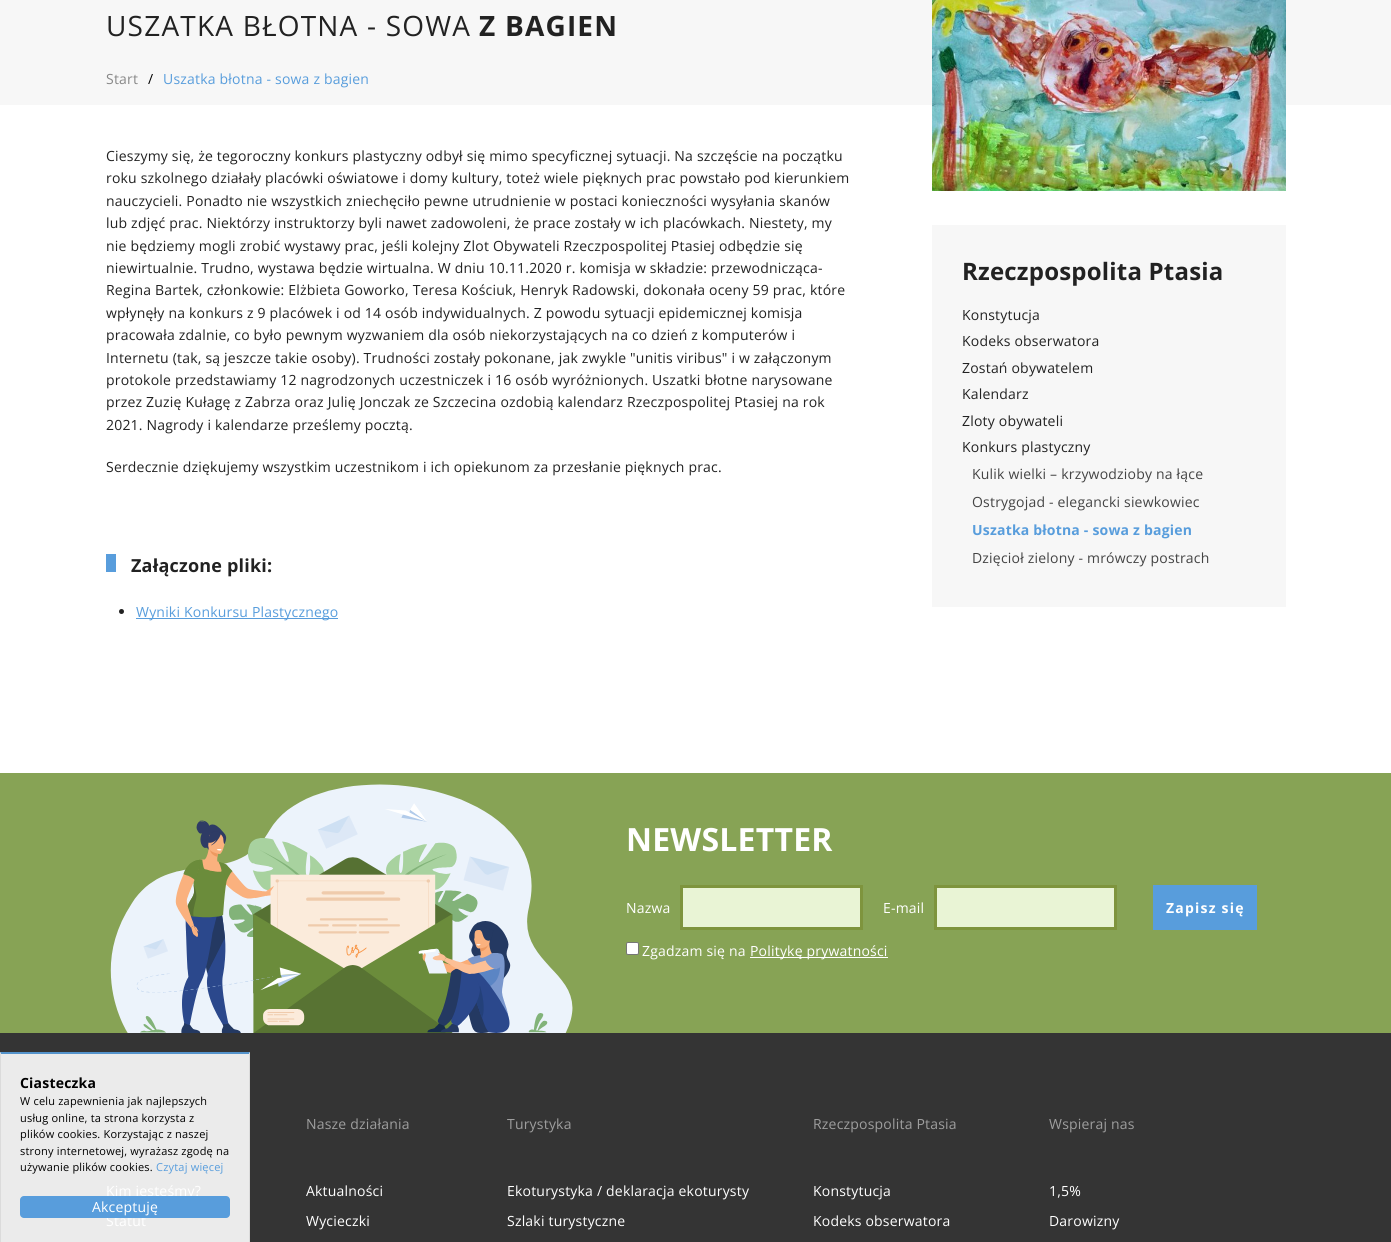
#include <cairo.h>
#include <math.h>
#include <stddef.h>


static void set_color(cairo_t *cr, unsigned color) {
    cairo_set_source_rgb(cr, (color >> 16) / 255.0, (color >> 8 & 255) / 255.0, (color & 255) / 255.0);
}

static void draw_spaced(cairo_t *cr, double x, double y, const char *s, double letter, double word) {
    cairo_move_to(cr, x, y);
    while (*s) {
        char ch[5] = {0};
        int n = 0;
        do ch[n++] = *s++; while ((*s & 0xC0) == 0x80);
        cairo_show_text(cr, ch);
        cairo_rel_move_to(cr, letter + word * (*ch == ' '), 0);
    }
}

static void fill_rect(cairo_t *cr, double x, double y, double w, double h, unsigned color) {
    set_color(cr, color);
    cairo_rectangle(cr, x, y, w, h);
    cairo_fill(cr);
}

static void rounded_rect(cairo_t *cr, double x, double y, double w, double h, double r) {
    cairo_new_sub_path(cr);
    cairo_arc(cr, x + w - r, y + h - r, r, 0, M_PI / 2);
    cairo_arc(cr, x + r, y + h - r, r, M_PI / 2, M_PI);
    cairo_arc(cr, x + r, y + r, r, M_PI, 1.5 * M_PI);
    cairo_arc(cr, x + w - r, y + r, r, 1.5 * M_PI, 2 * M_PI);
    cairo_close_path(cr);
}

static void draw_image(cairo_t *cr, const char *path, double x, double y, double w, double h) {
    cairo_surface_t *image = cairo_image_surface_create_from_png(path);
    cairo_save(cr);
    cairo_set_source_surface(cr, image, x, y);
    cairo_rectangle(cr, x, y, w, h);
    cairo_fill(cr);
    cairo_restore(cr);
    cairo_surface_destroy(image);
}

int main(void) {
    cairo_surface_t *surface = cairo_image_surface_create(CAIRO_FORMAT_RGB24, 1391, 1242);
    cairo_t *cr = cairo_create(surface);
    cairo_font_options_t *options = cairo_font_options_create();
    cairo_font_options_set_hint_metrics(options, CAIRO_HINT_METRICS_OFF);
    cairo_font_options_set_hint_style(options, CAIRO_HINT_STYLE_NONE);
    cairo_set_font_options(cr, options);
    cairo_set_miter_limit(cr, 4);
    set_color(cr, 0xFFFFFF);
    cairo_paint(cr);
    fill_rect(cr, 0, 0, 1391, 105, 0xF7F7F7);
    cairo_select_font_face(cr, "Open Sans", CAIRO_FONT_SLANT_NORMAL, CAIRO_FONT_WEIGHT_NORMAL);
    cairo_set_font_size(cr, 28);
    set_color(cr, 0x222222);
    draw_spaced(cr, 106, 36, "USZATKA BŁOTNA - SOWA", 1.2, 0);
    cairo_select_font_face(cr, "Open Sans", CAIRO_FONT_SLANT_NORMAL, CAIRO_FONT_WEIGHT_BOLD);
    draw_spaced(cr, 479, 36, "Z BAGIEN", 1.2, 0);
    cairo_select_font_face(cr, "Open Sans", CAIRO_FONT_SLANT_NORMAL, CAIRO_FONT_WEIGHT_NORMAL);
    cairo_set_font_size(cr, 14);
    set_color(cr, 0x888888);
    draw_spaced(cr, 106, 84, "Start", 0.2, 0);
    set_color(cr, 0x000000);
    draw_spaced(cr, 148, 84, "/", 0.2, 0);
    set_color(cr, 0x589DDC);
    draw_spaced(cr, 163, 84, "Uszatka błotna - sowa z bagien", 0.2, 0);
    draw_image(cr, "assets/img1.png", 932, 0, 354, 191);
    set_color(cr, 0x222222);
    draw_spaced(cr, 106, 161, "Cieszymy się, że tegoroczny konkurs plastyczny odbył się mimo specyficznej sytuacji. Na szczęście na początku", 0.2, 0);
    draw_spaced(cr, 106, 183, "roku szkolnego działały placówki oświatowe i domy kultury, toteż wiele pięknych prac powstało pod kierunkiem", 0.2, 0);
    draw_spaced(cr, 106, 206, "nauczycieli. Ponadto nie wszystkich zniechęciło pewne utrudnienie w postaci konieczności wysyłania skanów", 0.2, 0);
    draw_spaced(cr, 106, 228, "lub zdjęć prac. Niektórzy instruktorzy byli nawet zadowoleni, że prace zostały w ich placówkach. Niestety, my", 0.2, 0);
    draw_spaced(cr, 106, 251, "nie będziemy mogli zrobić wystawy prac, jeśli kolejny Zlot Obywateli Rzeczpospolitej Ptasiej odbędzie się", 0.2, 0);
    draw_spaced(cr, 106, 273, "niewirtualnie. Trudno, wystawa będzie wirtualna. W dniu 10.11.2020 r. komisja w składzie: przewodnicząca-", 0.2, 0);
    draw_spaced(cr, 106, 295, "Regina Bartek, członkowie: Elżbieta Goworko, Teresa Kościuk, Henryk Radowski, dokonała oceny 59 prac, które", 0.2, 0);
    draw_spaced(cr, 106, 318, "wpłynęły na konkurs z 9 placówek i od 14 osób indywidualnych. Z powodu sytuacji epidemicznej komisja", 0.2, 0);
    draw_spaced(cr, 106, 340, "pracowała zdalnie, co było pewnym wyzwaniem dla osób niekorzystających na co dzień z komputerów i", 0.2, 0);
    draw_spaced(cr, 106, 363, "Internetu (tak, są jeszcze takie osoby). Trudności zostały pokonane, jak zwykle \"unitis viribus\" i w załączonym", 0.2, 0);
    draw_spaced(cr, 106, 385, "protokole przedstawiamy 12 nagrodzonych uczestniczek i 16 osób wyróżnionych. Uszatki błotne narysowane", 0.2, 0);
    draw_spaced(cr, 106, 407, "przez Zuzię Kułagę z Zabrza oraz Julię Jonczak ze Szczecina ozdobią kalendarz Rzeczpospolitej Ptasiej na rok", 0.2, 0);
    draw_spaced(cr, 106, 430, "2021. Nagrody i kalendarze prześlemy pocztą.", 0.2, 0);
    draw_spaced(cr, 106, 472, "Serdecznie dziękujemy wszystkim uczestnikom i ich opiekunom za przesłanie pięknych prac.", 0.2, 0);
    fill_rect(cr, 106, 554, 10, 18, 0x589DDC);
    cairo_select_font_face(cr, "Open Sans", CAIRO_FONT_SLANT_NORMAL, CAIRO_FONT_WEIGHT_BOLD);
    cairo_set_font_size(cr, 18);
    set_color(cr, 0x222222);
    draw_spaced(cr, 131, 572, "Załączone pliki:", 0.2, 0);
    cairo_new_path(cr);
    cairo_arc(cr, 121.5, 611.5, 2.5, 0, 2 * M_PI);
    cairo_fill(cr);
    fill_rect(cr, 136, 618, 202, 1, 0x589DDC);
    cairo_select_font_face(cr, "Open Sans", CAIRO_FONT_SLANT_NORMAL, CAIRO_FONT_WEIGHT_NORMAL);
    cairo_set_font_size(cr, 14);
    draw_spaced(cr, 136, 617, "Wyniki Konkursu Plastycznego", 0.2, 0);
    fill_rect(cr, 932, 225, 354, 382, 0xF7F7F7);
    cairo_select_font_face(cr, "Open Sans", CAIRO_FONT_SLANT_NORMAL, CAIRO_FONT_WEIGHT_BOLD);
    cairo_set_font_size(cr, 24);
    set_color(cr, 0x222222);
    draw_spaced(cr, 962, 280, "Rzeczpospolita Ptasia", 0.2, 0);
    cairo_select_font_face(cr, "Open Sans", CAIRO_FONT_SLANT_NORMAL, CAIRO_FONT_WEIGHT_NORMAL);
    cairo_set_font_size(cr, 14);
    draw_spaced(cr, 962, 320, "Konstytucja", 0.2, 0);
    draw_spaced(cr, 962, 346, "Kodeks obserwatora", 0.2, 0);
    draw_spaced(cr, 962, 373, "Zostań obywatelem", 0.2, 0);
    draw_spaced(cr, 962, 399, "Kalendarz", 0.2, 0);
    draw_spaced(cr, 962, 426, "Zloty obywateli", 0.2, 0);
    draw_spaced(cr, 962, 452, "Konkurs plastyczny", 0.2, 0);
    set_color(cr, 0x444444);
    draw_spaced(cr, 972, 479, "Kulik wielki – krzywodzioby na łące", 0.2, 0);
    draw_spaced(cr, 972, 507, "Ostrygojad - elegancki siewkowiec", 0.2, 0);
    cairo_select_font_face(cr, "Open Sans", CAIRO_FONT_SLANT_NORMAL, CAIRO_FONT_WEIGHT_BOLD);
    set_color(cr, 0x589DDC);
    draw_spaced(cr, 972, 535, "Uszatka błotna - sowa z bagien", 0.2, 0);
    cairo_select_font_face(cr, "Open Sans", CAIRO_FONT_SLANT_NORMAL, CAIRO_FONT_WEIGHT_NORMAL);
    set_color(cr, 0x444444);
    draw_spaced(cr, 972, 563, "Dzięcioł zielony - mrówczy postrach", 0.2, 0);
    fill_rect(cr, 0, 773, 1391, 260, 0x87A355);
    draw_image(cr, "assets/img2.png", 110, 784, 463, 249);
    cairo_select_font_face(cr, "Open Sans", CAIRO_FONT_SLANT_NORMAL, CAIRO_FONT_WEIGHT_BOLD);
    cairo_set_font_size(cr, 32);
    set_color(cr, 0xFFFFFF);
    draw_spaced(cr, 626, 851, "NEWSLETTER", 0.2, 0);
    cairo_select_font_face(cr, "Open Sans", CAIRO_FONT_SLANT_NORMAL, CAIRO_FONT_WEIGHT_NORMAL);
    cairo_set_font_size(cr, 14);
    draw_spaced(cr, 626, 913, "Nazwa", 0.2, 0);
    set_color(cr, 0xE9F4D5);
    cairo_rectangle(cr, 681.5, 886.5, 180, 42);
    cairo_fill_preserve(cr);
    set_color(cr, 0x7E943D);
    cairo_set_line_width(cr, 3);
    cairo_stroke(cr);
    set_color(cr, 0xFFFFFF);
    draw_spaced(cr, 883, 913, "E-mail", 0.2, 0);
    set_color(cr, 0xE9F4D5);
    cairo_rectangle(cr, 935.5, 886.5, 180, 42);
    cairo_fill_preserve(cr);
    set_color(cr, 0x7E943D);
    cairo_stroke(cr);
    set_color(cr, 0xFFFFFF);
    rounded_rect(cr, 626.5, 942.5, 12, 12, 1.5);
    cairo_fill_preserve(cr);
    set_color(cr, 0x767676);
    cairo_set_line_width(cr, 1);
    cairo_stroke(cr);
    set_color(cr, 0xFFFFFF);
    draw_spaced(cr, 642, 956, "Zgadzam się na", 0.2, 0);
    fill_rect(cr, 750, 957, 138, 1, 0xFFFFFF);
    draw_spaced(cr, 750, 956, "Politykę prywatności", 0.2, 0);
    fill_rect(cr, 1153, 885, 104, 45, 0x589DDC);
    cairo_select_font_face(cr, "Open Sans", CAIRO_FONT_SLANT_NORMAL, CAIRO_FONT_WEIGHT_BOLD);
    set_color(cr, 0xFFFFFF);
    draw_spaced(cr, 1166, 913, "Zapisz się", 1.2, 0);
    fill_rect(cr, 0, 1033, 1391, 209, 0x343434);
    fill_rect(cr, 0, 1052, 250, 190, 0xEBEBEB);
    set_color(cr, 0x5493CB);
    cairo_new_path(cr);
    cairo_move_to(cr, 0, 1052);
    cairo_line_to(cr, 250, 1052);
    cairo_line_to(cr, 249, 1054);
    cairo_line_to(cr, 1, 1054);
    cairo_close_path(cr);
    cairo_fill(cr);
    set_color(cr, 0xDBDBDB);
    cairo_new_path(cr);
    cairo_move_to(cr, 250, 1052);
    cairo_line_to(cr, 250, 1242);
    cairo_line_to(cr, 249, 1242);
    cairo_line_to(cr, 249, 1054);
    cairo_close_path(cr);
    cairo_fill(cr);
    cairo_new_path(cr);
    cairo_move_to(cr, 0, 1242);
    cairo_line_to(cr, 0, 1052);
    cairo_line_to(cr, 1, 1054);
    cairo_line_to(cr, 1, 1242);
    cairo_close_path(cr);
    cairo_fill(cr);
    set_color(cr, 0x000000);
    draw_spaced(cr, 20, 1088, "Ciasteczka", 0.2, 0);
    cairo_select_font_face(cr, "Open Sans", CAIRO_FONT_SLANT_NORMAL, CAIRO_FONT_WEIGHT_NORMAL);
    cairo_set_font_size(cr, 11);
    draw_spaced(cr, 20, 1105, "W celu zapewnienia jak najlepszych", 0.2, 0);
    draw_spaced(cr, 20, 1122, "usług online, ta strona korzysta z", 0.2, 0);
    draw_spaced(cr, 20, 1138, "plików cookies. Korzystając z naszej", 0.2, 0);
    draw_spaced(cr, 20, 1155, "strony internetowej, wyrażasz zgodę na", 0.2, 0);
    draw_spaced(cr, 20, 1171, "używanie plików cookies.", 0.2, 0);
    set_color(cr, 0x589DDC);
    draw_spaced(cr, 156, 1171, "Czytaj więcej", 0.2, 0);
    cairo_set_font_size(cr, 14);
    set_color(cr, 0xFFFFFF);
    draw_spaced(cr, 106, 1196, "Kim jesteśmy?", 0.2, 0);
    draw_spaced(cr, 106, 1226, "Statut", 0.2, 0);
    set_color(cr, 0x589DDC);
    rounded_rect(cr, 20, 1196, 210, 22, 4);
    cairo_fill(cr);
    set_color(cr, 0xFFFFFF);
    draw_spaced(cr, 92, 1212, "Akceptuję", 0.2, 0);
    set_color(cr, 0x9E9E9E);
    draw_spaced(cr, 306, 1129, "Nasze działania", 0.2, 0);
    set_color(cr, 0xFFFFFF);
    draw_spaced(cr, 306, 1196, "Aktualności", 0.2, 0);
    draw_spaced(cr, 306, 1226, "Wycieczki", 0.2, 0);
    set_color(cr, 0x9E9E9E);
    draw_spaced(cr, 507, 1129, "Turystyka", 0.2, 0);
    set_color(cr, 0xFFFFFF);
    draw_spaced(cr, 507, 1196, "Ekoturystyka / deklaracja ekoturysty", 0.2, 0);
    draw_spaced(cr, 507, 1226, "Szlaki turystyczne", 0.2, 0);
    set_color(cr, 0x9E9E9E);
    draw_spaced(cr, 813, 1129, "Rzeczpospolita Ptasia", 0.2, 0);
    set_color(cr, 0xFFFFFF);
    draw_spaced(cr, 813, 1196, "Konstytucja", 0.2, 0);
    draw_spaced(cr, 813, 1226, "Kodeks obserwatora", 0.2, 0);
    set_color(cr, 0x9E9E9E);
    draw_spaced(cr, 1049, 1129, "Wspieraj nas", 0.2, 0);
    set_color(cr, 0xFFFFFF);
    draw_spaced(cr, 1049, 1196, "1,5%", 0.2, 0);
    draw_spaced(cr, 1049, 1226, "Darowizny", 0.2, 0);
    cairo_surface_write_to_png(surface, "output.png");
    cairo_font_options_destroy(options);
    cairo_destroy(cr);
    cairo_surface_destroy(surface);
    return 0;
}
